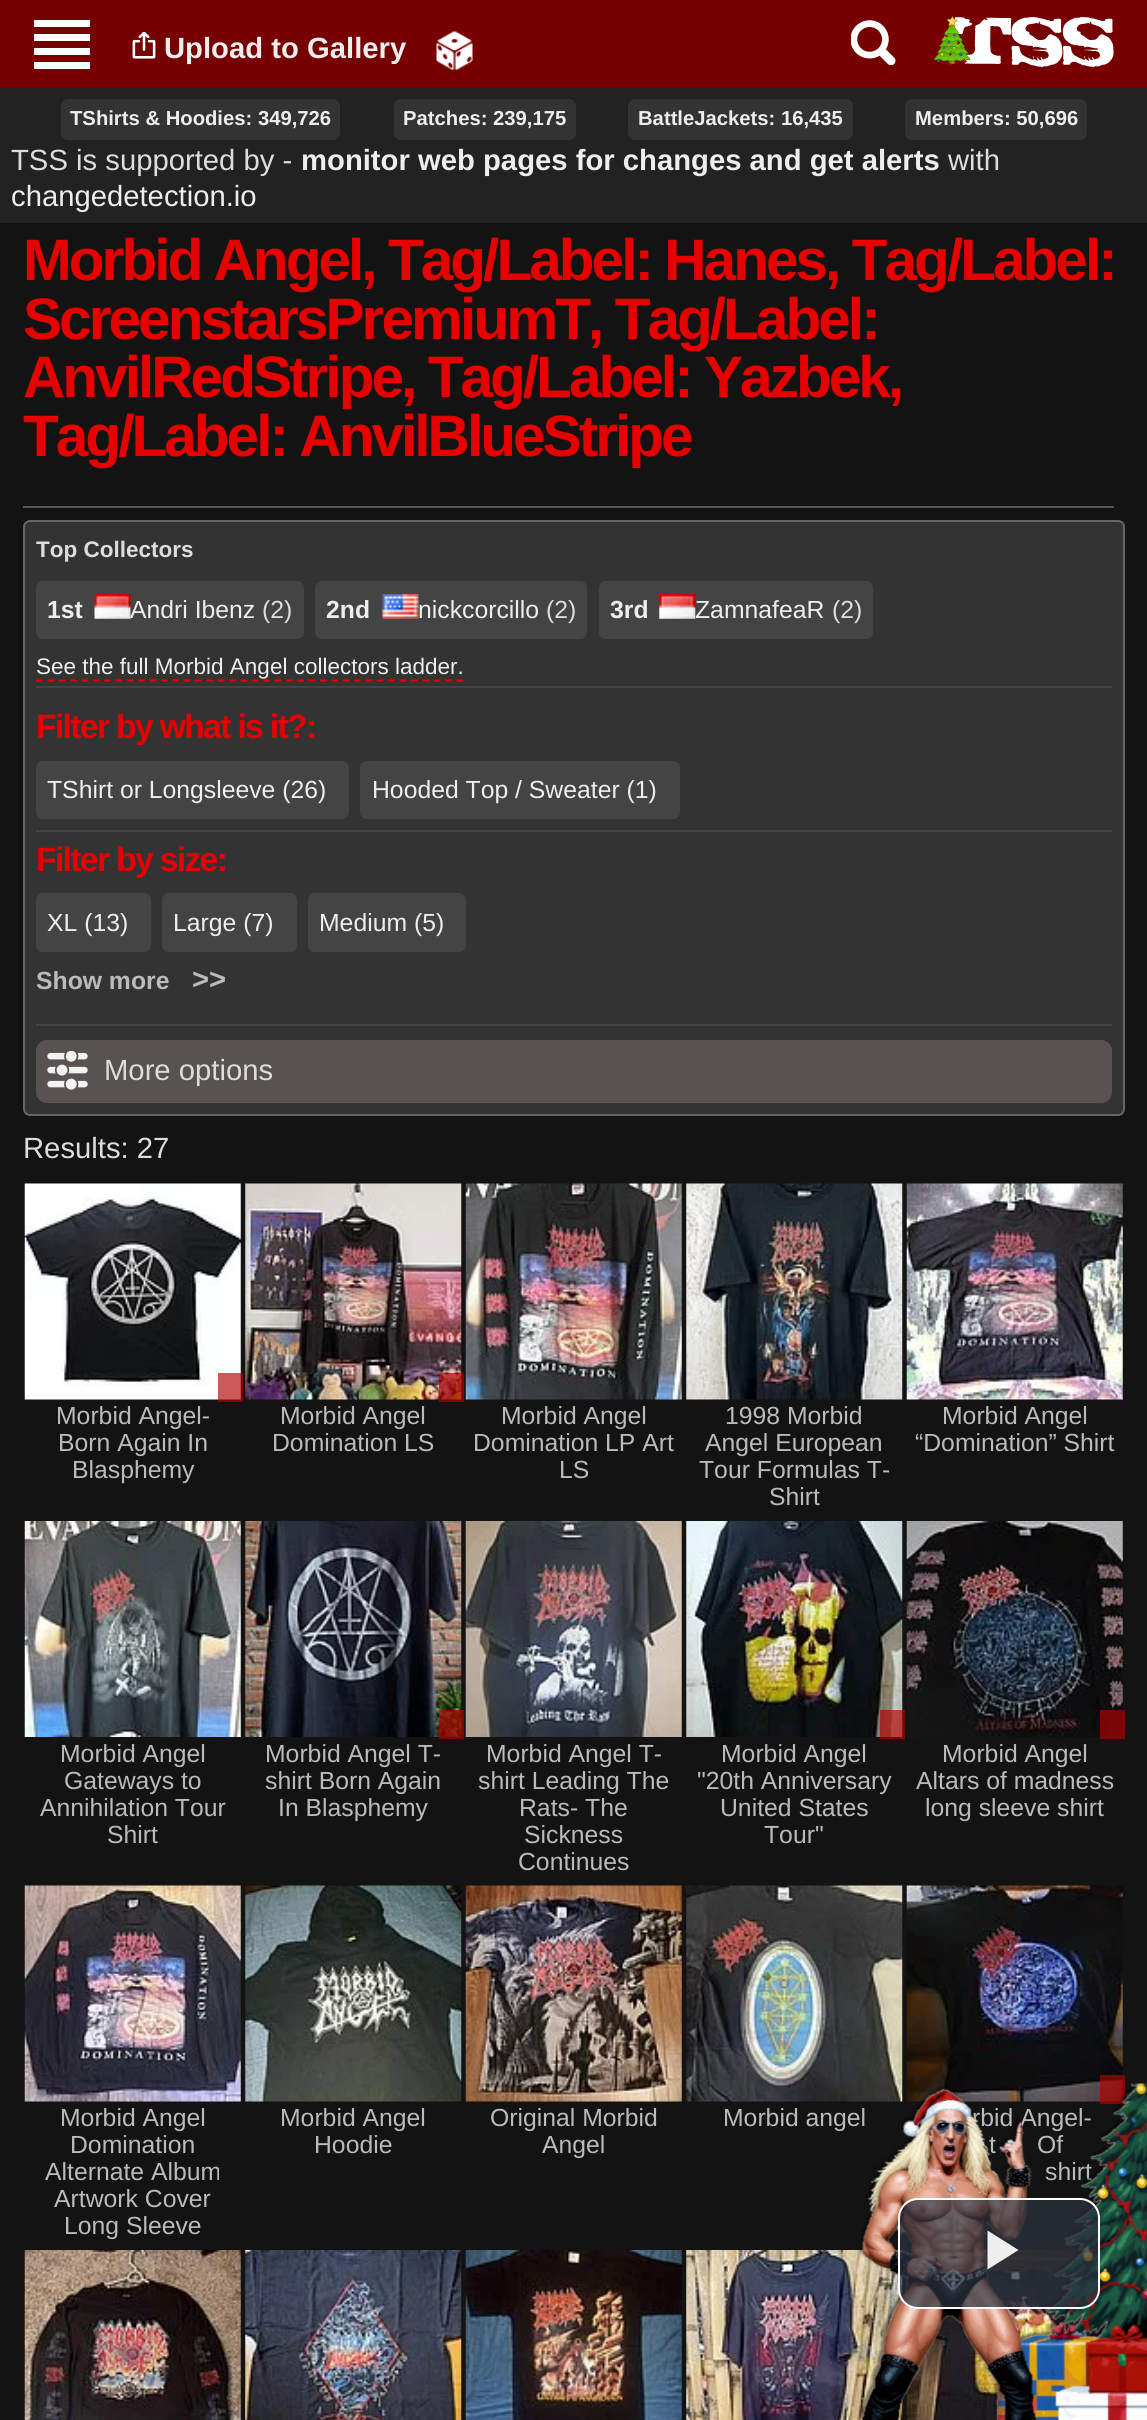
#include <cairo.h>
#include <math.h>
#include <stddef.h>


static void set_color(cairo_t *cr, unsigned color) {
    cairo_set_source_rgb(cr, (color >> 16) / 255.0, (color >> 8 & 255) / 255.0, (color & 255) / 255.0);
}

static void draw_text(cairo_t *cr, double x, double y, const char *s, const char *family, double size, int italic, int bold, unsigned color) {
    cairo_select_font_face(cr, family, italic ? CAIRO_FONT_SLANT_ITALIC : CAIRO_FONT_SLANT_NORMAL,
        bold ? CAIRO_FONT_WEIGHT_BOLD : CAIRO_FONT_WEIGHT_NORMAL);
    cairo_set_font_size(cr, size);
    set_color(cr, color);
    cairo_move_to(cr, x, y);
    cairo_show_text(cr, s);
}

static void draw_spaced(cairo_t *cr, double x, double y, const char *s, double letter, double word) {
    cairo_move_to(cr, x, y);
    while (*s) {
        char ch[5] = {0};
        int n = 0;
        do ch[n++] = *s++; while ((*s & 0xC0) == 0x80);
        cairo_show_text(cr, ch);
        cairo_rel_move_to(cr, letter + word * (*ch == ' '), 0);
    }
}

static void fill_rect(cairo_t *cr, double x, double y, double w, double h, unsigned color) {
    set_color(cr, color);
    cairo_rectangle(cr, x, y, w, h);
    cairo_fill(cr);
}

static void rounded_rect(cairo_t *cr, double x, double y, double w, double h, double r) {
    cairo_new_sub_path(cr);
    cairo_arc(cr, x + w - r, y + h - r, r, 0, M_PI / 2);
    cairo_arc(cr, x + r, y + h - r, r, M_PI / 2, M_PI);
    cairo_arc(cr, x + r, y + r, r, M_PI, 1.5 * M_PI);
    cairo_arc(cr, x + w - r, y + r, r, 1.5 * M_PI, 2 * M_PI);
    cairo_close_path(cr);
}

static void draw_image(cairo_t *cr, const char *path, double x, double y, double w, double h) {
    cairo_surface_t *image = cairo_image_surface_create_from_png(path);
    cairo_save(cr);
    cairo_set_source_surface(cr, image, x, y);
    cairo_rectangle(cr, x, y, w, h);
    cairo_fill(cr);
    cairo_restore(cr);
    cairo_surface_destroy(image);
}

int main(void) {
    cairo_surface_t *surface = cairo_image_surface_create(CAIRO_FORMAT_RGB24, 1147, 2420);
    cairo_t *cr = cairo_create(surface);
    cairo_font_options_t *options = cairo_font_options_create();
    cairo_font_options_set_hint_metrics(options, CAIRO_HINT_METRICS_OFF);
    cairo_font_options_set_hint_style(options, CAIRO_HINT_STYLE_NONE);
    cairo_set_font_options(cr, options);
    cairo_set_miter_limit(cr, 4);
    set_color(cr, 0x131313);
    cairo_paint(cr);
    fill_rect(cr, 0, 0, 1147, 88, 0x770000);
    fill_rect(cr, 34, 20, 56, 7, 0xFDFFFF);
    fill_rect(cr, 34, 34, 56, 7, 0xFDFFFF);
    fill_rect(cr, 34, 48, 56, 7, 0xFDFFFF);
    fill_rect(cr, 34, 62, 56, 7, 0xFDFFFF);
    draw_image(cr, "assets/img1.png", 132, 32, 24, 27);
    draw_text(cr, 164, 58, "Upload to Gallery", "Liberation Sans", 29.25, 0, 1, 0xEEEEEE);
    draw_image(cr, "assets/img2.png", 436, 31, 37, 39);
    draw_image(cr, "assets/img3.png", 851, 20, 45, 45);
    draw_image(cr, "assets/img4.png", 934, 16, 180, 51);
    fill_rect(cr, 0, 88, 1147, 135, 0x222222);
    set_color(cr, 0x333333);
    rounded_rect(cr, 61, 99, 279, 41, 7);
    cairo_fill(cr);
    draw_text(cr, 70, 125, "TShirts & Hoodies: 349,726", "Liberation Sans", 20.25, 0, 1, 0xEEEEEE);
    set_color(cr, 0x333333);
    rounded_rect(cr, 394, 99, 182, 41, 7);
    cairo_fill(cr);
    draw_text(cr, 403, 125, "Patches: 239,175", "Liberation Sans", 20.25, 0, 1, 0xEEEEEE);
    set_color(cr, 0x333333);
    rounded_rect(cr, 628, 99, 225, 41, 7);
    cairo_fill(cr);
    draw_text(cr, 638, 125, "BattleJackets: 16,435", "Liberation Sans", 20.25, 0, 1, 0xEEEEEE);
    set_color(cr, 0x333333);
    rounded_rect(cr, 905, 99, 182, 41, 7);
    cairo_fill(cr);
    draw_text(cr, 915, 125, "Members: 50,696", "Liberation Sans", 20.25, 0, 1, 0xEEEEEE);
    draw_text(cr, 11, 170, "TSS is supported by ‐", "Liberation Sans", 29.25, 0, 0, 0xDDDDDD);
    draw_text(cr, 301, 170, "monitor web pages for changes and get alerts", "Liberation Sans", 29.25, 0, 1, 0xEEEEEE);
    draw_text(cr, 948, 170, "with", "Liberation Sans", 29.25, 0, 0, 0xDDDDDD);
    draw_text(cr, 11, 206, "changedetection.io", "Liberation Sans", 29.25, 0, 0, 0xEEEEEE);
    cairo_select_font_face(cr, "Liberation Sans", CAIRO_FONT_SLANT_NORMAL, CAIRO_FONT_WEIGHT_BOLD);
    cairo_set_font_size(cr, 58.5);
    set_color(cr, 0xE80000);
    draw_spaced(cr, 23, 280, "Morbid Angel, Tag/Label: Hanes, Tag/Label:", -2.95, 0);
    draw_spaced(cr, 23, 339, "ScreenstarsPremiumT, Tag/Label:", -2.95, 0);
    draw_spaced(cr, 23, 397, "AnvilRedStripe, Tag/Label: Yazbek,", -2.95, 0);
    draw_spaced(cr, 23, 456, "Tag/Label: AnvilBlueStripe", -2.95, 0);
    fill_rect(cr, 23, 506, 1091, 2, 0x555555);
    set_color(cr, 0x333333);
    rounded_rect(cr, 24, 521, 1100, 594, 6);
    cairo_fill_preserve(cr);
    set_color(cr, 0x666666);
    cairo_stroke(cr);
    fill_rect(cr, 36, 686, 1076, 2, 0x444444);
    draw_text(cr, 36, 557, "Top Collectors", "Liberation Sans", 22.5, 0, 1, 0xDDDDDD);
    set_color(cr, 0x444444);
    rounded_rect(cr, 36, 581, 268, 58, 7);
    cairo_fill(cr);
    draw_text(cr, 47, 618, "1st", "Liberation Sans", 24.75, 0, 1, 0xEEEEEE);
    draw_text(cr, 130, 618, "Andri Ibenz", "Liberation Sans", 24.75, 0, 0, 0xEEEEEE);
    draw_image(cr, "assets/img5.png", 94, 594, 37, 25);
    draw_text(cr, 262, 618, "(2)", "Liberation Sans", 24.75, 0, 0, 0xDDDDDD);
    set_color(cr, 0x444444);
    rounded_rect(cr, 315, 581, 272, 58, 7);
    cairo_fill(cr);
    draw_text(cr, 326, 618, "2nd", "Liberation Sans", 24.75, 0, 1, 0xEEEEEE);
    draw_image(cr, "assets/img6.png", 382, 594, 37, 25);
    draw_text(cr, 418, 618, "nickcorcillo", "Liberation Sans", 24.75, 0, 0, 0xEEEEEE);
    draw_text(cr, 546, 618, "(2)", "Liberation Sans", 24.75, 0, 0, 0xDDDDDD);
    set_color(cr, 0x444444);
    rounded_rect(cr, 599, 581, 274, 58, 7);
    cairo_fill(cr);
    draw_text(cr, 610, 618, "3rd", "Liberation Sans", 24.75, 0, 1, 0xEEEEEE);
    draw_image(cr, "assets/img7.png", 659, 594, 37, 25);
    draw_text(cr, 695, 618, "ZamnafeaR", "Liberation Sans", 24.75, 0, 0, 0xEEEEEE);
    draw_text(cr, 832, 618, "(2)", "Liberation Sans", 24.75, 0, 0, 0xDDDDDD);
    draw_text(cr, 36, 674, "See the full Morbid Angel collectors ladder.", "Liberation Sans", 22.5, 0, 0, 0xEEEEEE);
    cairo_new_path(cr);
    cairo_move_to(cr, 36, 680.5);
    cairo_line_to(cr, 463.5, 680.5);
    set_color(cr, 0xE80000);
    cairo_set_line_width(cr, 2.2);
    cairo_set_dash(cr, (double[]){6.75, 4.61}, 2, 0);
    cairo_stroke(cr);
    fill_rect(cr, 36, 830, 1076, 2, 0x444444);
    cairo_select_font_face(cr, "Liberation Sans", CAIRO_FONT_SLANT_NORMAL, CAIRO_FONT_WEIGHT_BOLD);
    cairo_set_font_size(cr, 33.75);
    set_color(cr, 0xE80000);
    draw_spaced(cr, 36, 738, "Filter by what is it?:", -1.7, 0);
    set_color(cr, 0x444444);
    rounded_rect(cr, 36, 761, 313, 58, 7);
    cairo_fill(cr);
    draw_text(cr, 47, 798, "TShirt or Longsleeve (26)", "Liberation Sans", 24.75, 0, 0, 0xEEEEEE);
    set_color(cr, 0x444444);
    rounded_rect(cr, 360, 761, 320, 58, 7);
    cairo_fill(cr);
    draw_text(cr, 372, 798, "Hooded Top / Sweater (1)", "Liberation Sans", 24.75, 0, 0, 0xEEEEEE);
    fill_rect(cr, 36, 1024, 1076, 2, 0x444444);
    cairo_select_font_face(cr, "Liberation Sans", CAIRO_FONT_SLANT_NORMAL, CAIRO_FONT_WEIGHT_BOLD);
    cairo_set_font_size(cr, 33.75);
    set_color(cr, 0xE80000);
    draw_spaced(cr, 36, 871, "Filter by size:", -1.7, 0);
    set_color(cr, 0x444444);
    rounded_rect(cr, 36, 893, 115, 59, 7);
    cairo_fill(cr);
    draw_text(cr, 47, 931, "XL (13)", "Liberation Sans", 24.75, 0, 0, 0xEEEEEE);
    set_color(cr, 0x444444);
    rounded_rect(cr, 162, 893, 135, 59, 7);
    cairo_fill(cr);
    draw_text(cr, 173, 931, "Large (7)", "Liberation Sans", 24.75, 0, 0, 0xEEEEEE);
    set_color(cr, 0x444444);
    rounded_rect(cr, 308, 893, 158, 59, 7);
    cairo_fill(cr);
    draw_text(cr, 319, 931, "Medium (5)", "Liberation Sans", 24.75, 0, 0, 0xEEEEEE);
    draw_text(cr, 36, 989, "Show more", "Liberation Sans", 24.75, 0, 1, 0xBBBBBB);
    draw_text(cr, 192, 989, ">>", "Liberation Sans", 29.25, 0, 1, 0xBBBBBB);
    set_color(cr, 0x585351);
    rounded_rect(cr, 36, 1040, 1076, 63, 11);
    cairo_fill(cr);
    draw_image(cr, "assets/img8.png", 47, 1051, 41, 39);
    draw_text(cr, 104, 1080, "More options", "Liberation Sans", 29.25, 0, 0, 0xDDDDDD);
    draw_text(cr, 23, 1158, "Results: 27", "Liberation Sans", 29.25, 0, 0, 0xDDDDDD);
    draw_image(cr, "assets/img9.png", 24, 1183, 217, 217);
    cairo_set_source_rgba(cr, 0.706, 0, 0, 0.65);
    cairo_rectangle(cr, 218, 1373, 25, 29);
    cairo_fill(cr);
    draw_text(cr, 56, 1424, "Morbid Angel-", "Liberation Sans", 24.75, 0, 0, 0xBBBBBB);
    draw_text(cr, 58, 1451, "Born Again In", "Liberation Sans", 24.75, 0, 0, 0xBBBBBB);
    draw_text(cr, 72, 1478, "Blasphemy", "Liberation Sans", 24.75, 0, 0, 0xBBBBBB);
    draw_image(cr, "assets/img10.png", 245, 1183, 217, 217);
    cairo_set_source_rgba(cr, 0.706, 0, 0, 0.65);
    cairo_rectangle(cr, 439, 1373, 25, 29);
    cairo_fill(cr);
    draw_text(cr, 280, 1424, "Morbid Angel", "Liberation Sans", 24.75, 0, 0, 0xBBBBBB);
    draw_text(cr, 272, 1451, "Domination LS", "Liberation Sans", 24.75, 0, 0, 0xBBBBBB);
    draw_image(cr, "assets/img11.png", 465, 1183, 217, 217);
    draw_text(cr, 501, 1424, "Morbid Angel", "Liberation Sans", 24.75, 0, 0, 0xBBBBBB);
    draw_text(cr, 473, 1451, "Domination LP Art", "Liberation Sans", 24.75, 0, 0, 0xBBBBBB);
    draw_text(cr, 559, 1478, "LS", "Liberation Sans", 24.75, 0, 0, 0xBBBBBB);
    draw_image(cr, "assets/img12.png", 686, 1183, 217, 217);
    draw_text(cr, 725, 1424, "1998 Morbid", "Liberation Sans", 24.75, 0, 0, 0xBBBBBB);
    draw_text(cr, 705, 1451, "Angel European", "Liberation Sans", 24.75, 0, 0, 0xBBBBBB);
    draw_text(cr, 699, 1478, "Tour Formulas T-", "Liberation Sans", 24.75, 0, 0, 0xBBBBBB);
    draw_text(cr, 769, 1505, "Shirt", "Liberation Sans", 24.75, 0, 0, 0xBBBBBB);
    draw_image(cr, "assets/img13.png", 906, 1183, 217, 217);
    draw_text(cr, 942, 1424, "Morbid Angel", "Liberation Sans", 24.75, 0, 0, 0xBBBBBB);
    draw_text(cr, 915, 1451, "“Domination” Shirt", "Liberation Sans", 24.75, 0, 0, 0xBBBBBB);
    draw_image(cr, "assets/img14.png", 24, 1521, 217, 216);
    draw_text(cr, 60, 1762, "Morbid Angel", "Liberation Sans", 24.75, 0, 0, 0xBBBBBB);
    draw_text(cr, 64, 1789, "Gateways to", "Liberation Sans", 24.75, 0, 0, 0xBBBBBB);
    draw_text(cr, 40, 1816, "Annihilation Tour", "Liberation Sans", 24.75, 0, 0, 0xBBBBBB);
    draw_text(cr, 107, 1843, "Shirt", "Liberation Sans", 24.75, 0, 0, 0xBBBBBB);
    draw_image(cr, "assets/img15.png", 245, 1521, 217, 216);
    cairo_set_source_rgba(cr, 0.706, 0, 0, 0.65);
    cairo_rectangle(cr, 439, 1710, 25, 29);
    cairo_fill(cr);
    draw_text(cr, 265, 1762, "Morbid Angel T-", "Liberation Sans", 24.75, 0, 0, 0xBBBBBB);
    draw_text(cr, 265, 1789, "shirt Born Again", "Liberation Sans", 24.75, 0, 0, 0xBBBBBB);
    draw_text(cr, 278, 1816, "In Blasphemy", "Liberation Sans", 24.75, 0, 0, 0xBBBBBB);
    draw_image(cr, "assets/img16.png", 465, 1521, 217, 216);
    draw_text(cr, 486, 1762, "Morbid Angel T-", "Liberation Sans", 24.75, 0, 0, 0xBBBBBB);
    draw_text(cr, 478, 1789, "shirt Leading The", "Liberation Sans", 24.75, 0, 0, 0xBBBBBB);
    draw_text(cr, 519, 1816, "Rats- The", "Liberation Sans", 24.75, 0, 0, 0xBBBBBB);
    draw_text(cr, 524, 1843, "Sickness", "Liberation Sans", 24.75, 0, 0, 0xBBBBBB);
    draw_text(cr, 518, 1870, "Continues", "Liberation Sans", 24.75, 0, 0, 0xBBBBBB);
    draw_image(cr, "assets/img17.png", 686, 1521, 217, 216);
    cairo_set_source_rgba(cr, 0.706, 0, 0, 0.65);
    cairo_rectangle(cr, 880, 1710, 25, 29);
    cairo_fill(cr);
    draw_text(cr, 721, 1762, "Morbid Angel", "Liberation Sans", 24.75, 0, 0, 0xBBBBBB);
    draw_text(cr, 697, 1789, "\"20th Anniversary", "Liberation Sans", 24.75, 0, 0, 0xBBBBBB);
    draw_text(cr, 720, 1816, "United States", "Liberation Sans", 24.75, 0, 0, 0xBBBBBB);
    draw_text(cr, 764, 1843, "Tour\"", "Liberation Sans", 24.75, 0, 0, 0xBBBBBB);
    draw_image(cr, "assets/img18.png", 906, 1521, 217, 216);
    cairo_set_source_rgba(cr, 0.706, 0, 0, 0.65);
    cairo_rectangle(cr, 1100, 1710, 25, 29);
    cairo_fill(cr);
    draw_text(cr, 942, 1762, "Morbid Angel", "Liberation Sans", 24.75, 0, 0, 0xBBBBBB);
    draw_text(cr, 916, 1789, "Altars of madness", "Liberation Sans", 24.75, 0, 0, 0xBBBBBB);
    draw_text(cr, 925, 1816, "long sleeve shirt", "Liberation Sans", 24.75, 0, 0, 0xBBBBBB);
    draw_image(cr, "assets/img19.png", 24, 1885, 217, 217);
    draw_text(cr, 60, 2126, "Morbid Angel", "Liberation Sans", 24.75, 0, 0, 0xBBBBBB);
    draw_text(cr, 70, 2153, "Domination", "Liberation Sans", 24.75, 0, 0, 0xBBBBBB);
    draw_text(cr, 45, 2180, "Alternate Album", "Liberation Sans", 24.75, 0, 0, 0xBBBBBB);
    draw_text(cr, 54, 2207, "Artwork Cover", "Liberation Sans", 24.75, 0, 0, 0xBBBBBB);
    draw_text(cr, 64, 2234, "Long Sleeve", "Liberation Sans", 24.75, 0, 0, 0xBBBBBB);
    draw_image(cr, "assets/img20.png", 245, 1885, 217, 217);
    draw_text(cr, 280, 2126, "Morbid Angel", "Liberation Sans", 24.75, 0, 0, 0xBBBBBB);
    draw_text(cr, 314, 2153, "Hoodie", "Liberation Sans", 24.75, 0, 0, 0xBBBBBB);
    draw_image(cr, "assets/img21.png", 465, 1885, 217, 217);
    draw_text(cr, 490, 2126, "Original Morbid", "Liberation Sans", 24.75, 0, 0, 0xBBBBBB);
    draw_text(cr, 542, 2153, "Angel", "Liberation Sans", 24.75, 0, 0, 0xBBBBBB);
    draw_image(cr, "assets/img22.png", 686, 1885, 217, 217);
    draw_text(cr, 723, 2126, "Morbid angel", "Liberation Sans", 24.75, 0, 0, 0xBBBBBB);
    draw_image(cr, "assets/img23.png", 906, 1885, 217, 217);
    cairo_set_source_rgba(cr, 0.706, 0, 0, 0.65);
    cairo_rectangle(cr, 1100, 2075, 25, 29);
    cairo_fill(cr);
    draw_text(cr, 972, 2126, "rbid Angel-", "Liberation Sans", 24.75, 0, 0, 0xBBBBBB);
    draw_text(cr, 989, 2153, "t", "Liberation Sans", 24.75, 0, 0, 0xBBBBBB);
    draw_text(cr, 1037, 2153, "Of", "Liberation Sans", 24.75, 0, 0, 0xBBBBBB);
    draw_text(cr, 1045, 2180, "shirt", "Liberation Sans", 24.75, 0, 0, 0xBBBBBB);
    draw_image(cr, "assets/img24.png", 24, 2250, 217, 170);
    draw_image(cr, "assets/img25.png", 245, 2250, 217, 170);
    draw_image(cr, "assets/img26.png", 465, 2250, 217, 170);
    draw_image(cr, "assets/img27.png", 686, 2250, 217, 170);
    draw_image(cr, "assets/img28.png", 906, 2250, 203, 170);
    draw_image(cr, "assets/img29.png", 859, 2083, 288, 337);
    cairo_set_source_rgba(cr, 0.169, 0.2, 0.247, 0.7);
    rounded_rect(cr, 899, 2199, 200, 109, 19);
    cairo_fill_preserve(cr);
    set_color(cr, 0xFFFFFF);
    cairo_set_line_width(cr, 2);
    cairo_set_dash(cr, NULL, 0, 0);
    cairo_stroke(cr);
    set_color(cr, 0xEEEEEE);
    cairo_new_path(cr);
    cairo_move_to(cr, 987.5, 2230.5);
    cairo_line_to(cr, 987.5, 2269.5);
    cairo_line_to(cr, 1018.5, 2250);
    cairo_close_path(cr);
    cairo_fill(cr);
    cairo_surface_write_to_png(surface, "output.png");
    cairo_font_options_destroy(options);
    cairo_destroy(cr);
    cairo_surface_destroy(surface);
    return 0;
}
